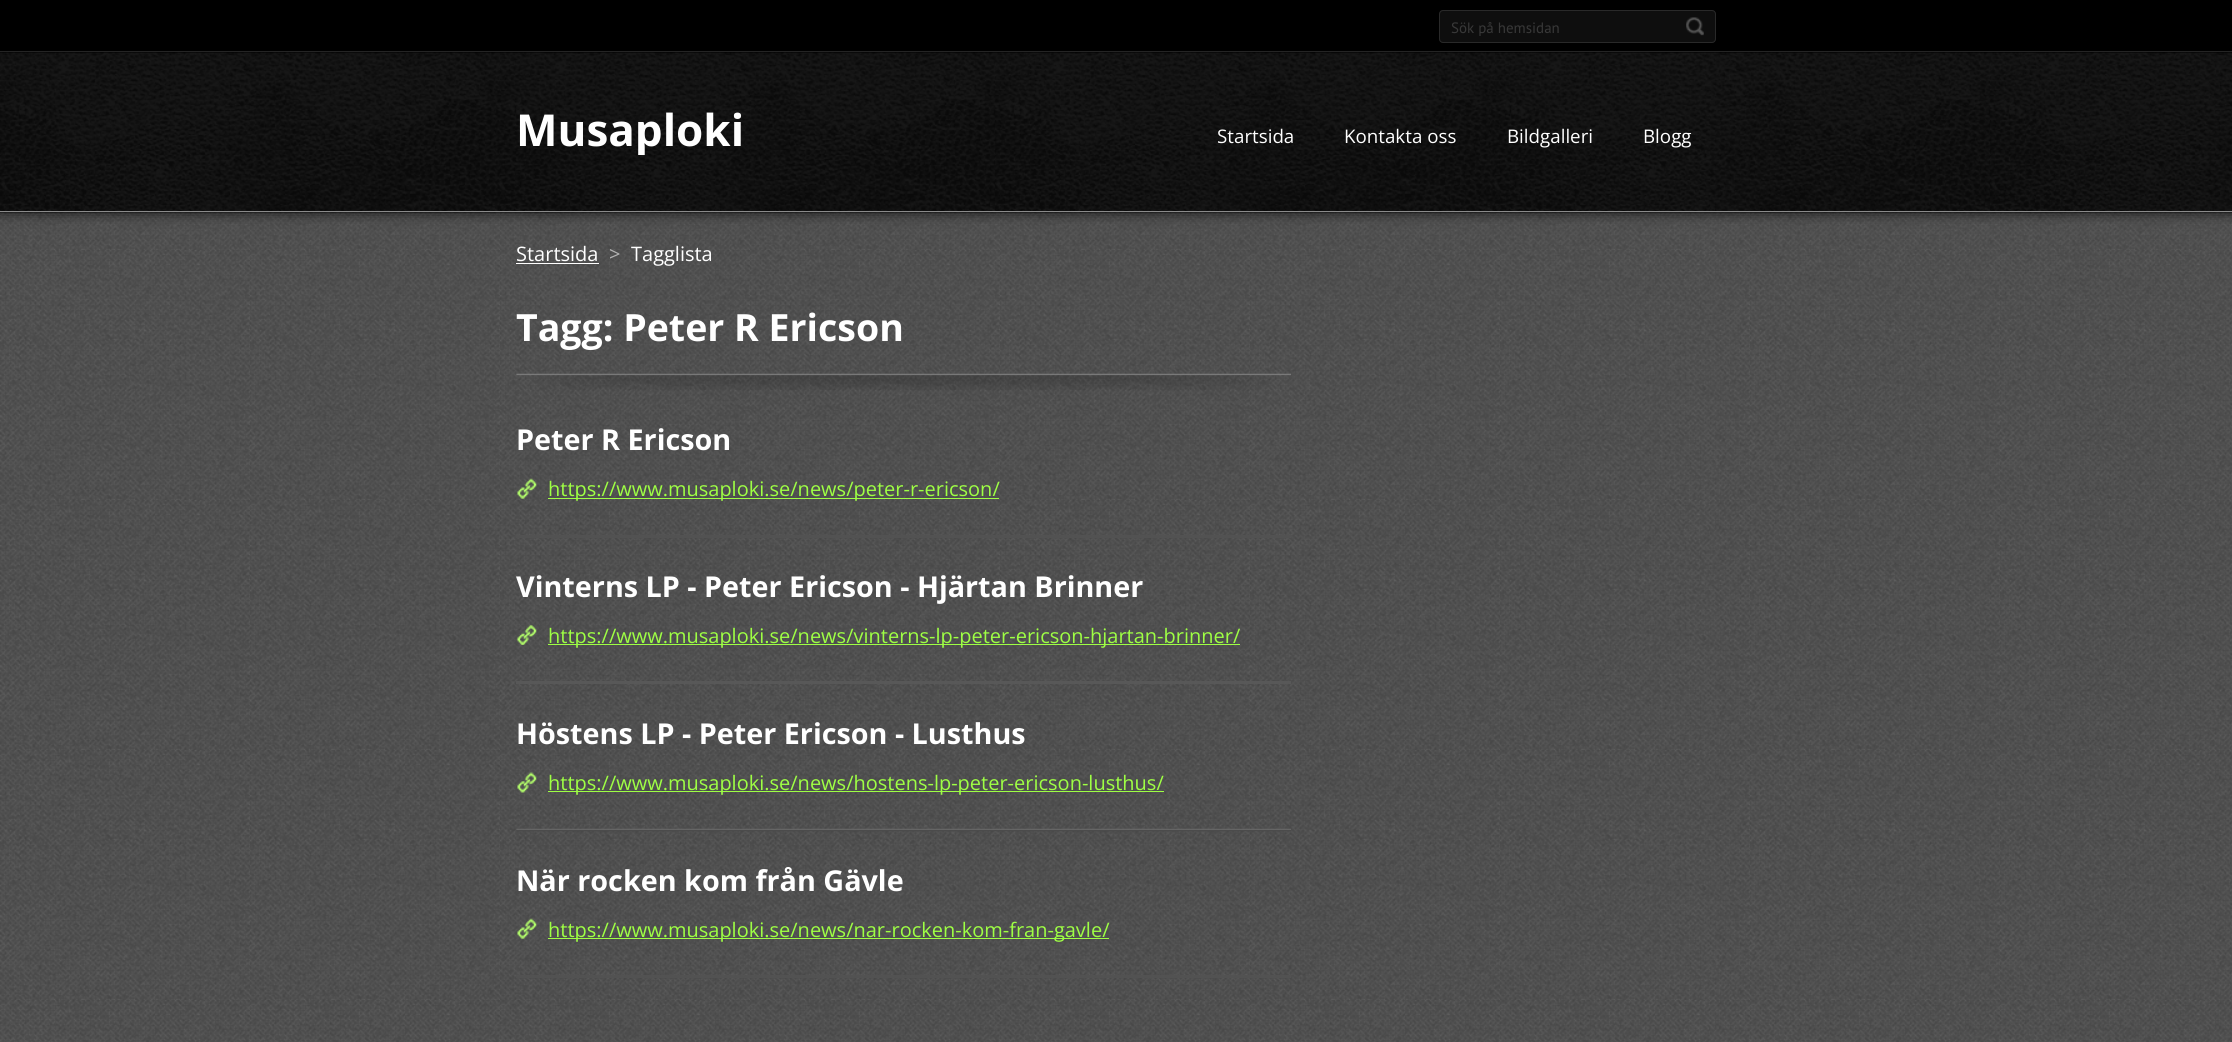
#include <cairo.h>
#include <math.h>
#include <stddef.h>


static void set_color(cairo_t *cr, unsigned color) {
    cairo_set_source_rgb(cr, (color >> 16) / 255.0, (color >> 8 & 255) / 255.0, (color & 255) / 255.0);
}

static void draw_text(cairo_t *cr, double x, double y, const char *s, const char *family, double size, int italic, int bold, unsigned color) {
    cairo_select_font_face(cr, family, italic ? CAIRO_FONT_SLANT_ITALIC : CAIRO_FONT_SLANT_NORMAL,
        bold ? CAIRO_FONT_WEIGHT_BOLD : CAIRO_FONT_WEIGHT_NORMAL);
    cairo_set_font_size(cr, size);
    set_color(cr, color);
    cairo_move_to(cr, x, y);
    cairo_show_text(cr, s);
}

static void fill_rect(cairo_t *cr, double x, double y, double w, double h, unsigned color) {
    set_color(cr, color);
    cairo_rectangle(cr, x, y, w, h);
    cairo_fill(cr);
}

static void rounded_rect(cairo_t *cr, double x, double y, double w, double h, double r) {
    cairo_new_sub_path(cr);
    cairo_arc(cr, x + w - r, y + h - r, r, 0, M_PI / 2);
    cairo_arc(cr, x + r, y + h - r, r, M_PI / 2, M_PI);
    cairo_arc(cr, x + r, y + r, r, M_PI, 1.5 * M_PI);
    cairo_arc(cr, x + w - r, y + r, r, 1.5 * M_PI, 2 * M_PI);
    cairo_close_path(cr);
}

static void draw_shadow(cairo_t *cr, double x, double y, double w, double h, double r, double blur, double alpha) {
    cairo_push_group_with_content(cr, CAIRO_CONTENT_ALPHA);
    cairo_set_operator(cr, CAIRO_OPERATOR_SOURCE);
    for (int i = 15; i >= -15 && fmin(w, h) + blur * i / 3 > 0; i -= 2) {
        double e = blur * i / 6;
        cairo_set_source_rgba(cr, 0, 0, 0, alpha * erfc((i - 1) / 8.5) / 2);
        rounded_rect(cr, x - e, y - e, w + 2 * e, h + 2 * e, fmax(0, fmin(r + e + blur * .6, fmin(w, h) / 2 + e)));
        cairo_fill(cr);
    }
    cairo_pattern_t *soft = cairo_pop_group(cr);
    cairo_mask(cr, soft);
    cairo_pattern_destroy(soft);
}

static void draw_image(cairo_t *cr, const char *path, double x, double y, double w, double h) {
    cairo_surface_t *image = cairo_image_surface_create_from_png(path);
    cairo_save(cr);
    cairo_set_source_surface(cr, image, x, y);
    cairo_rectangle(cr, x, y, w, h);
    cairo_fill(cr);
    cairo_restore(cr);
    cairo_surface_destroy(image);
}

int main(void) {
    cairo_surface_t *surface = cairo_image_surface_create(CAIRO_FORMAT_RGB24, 2232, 1042);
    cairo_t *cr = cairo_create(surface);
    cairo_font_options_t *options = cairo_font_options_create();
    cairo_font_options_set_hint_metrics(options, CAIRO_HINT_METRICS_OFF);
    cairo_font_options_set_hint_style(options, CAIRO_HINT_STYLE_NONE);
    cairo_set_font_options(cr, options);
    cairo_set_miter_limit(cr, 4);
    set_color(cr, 0xFFFFFF);
    cairo_paint(cr);
    draw_image(cr, "assets/img1.png", 0, 212, 2232, 830);
    fill_rect(cr, 0, 0, 2232, 53, 0x000000);
    fill_rect(cr, 0, 51, 2232, 1, 0x303030);
    set_color(cr, 0x000000);
    draw_shadow(cr, 0, 53, 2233, 160, 0, 6, 0.7);
    set_color(cr, 0x0E0E0E);
    rounded_rect(cr, 1439.5, 10.5, 276, 32, 3.5);
    cairo_fill_preserve(cr);
    set_color(cr, 0x292929);
    cairo_set_line_width(cr, 1);
    cairo_stroke(cr);
    draw_text(cr, 1451, 33, "Sök på hemsidan", "PT Sans", 15, 0, 0, 0x383838);
    draw_image(cr, "assets/img2.png", 1686, 17, 18, 19);
    draw_image(cr, "assets/img3.png", 0, 52, 2232, 161);
    fill_rect(cr, 0, 211, 2232, 1, 0x8A8A8A);
    cairo_save(cr);
    cairo_rectangle(cr, 516, 103, 228, 52);
    cairo_clip(cr);
    draw_text(cr, 516, 146, "Musaploki", "Open Sans", 44, 0, 1, 0xFFFFFF);
    cairo_restore(cr);
    draw_text(cr, 1217, 143, "Startsida", "Open Sans", 18.75, 0, 0, 0xFFFFFF);
    draw_text(cr, 1344, 143, "Kontakta oss", "Open Sans", 18.75, 0, 0, 0xFFFFFF);
    draw_text(cr, 1507, 143, "Bildgalleri", "Open Sans", 18.75, 0, 0, 0xFFFFFF);
    draw_text(cr, 1643, 143, "Blogg", "Open Sans", 18.75, 0, 0, 0xFFFFFF);
    draw_text(cr, 516, 261, "Startsida", "Open Sans", 20, 0, 0, 0xFFFFFF);
    fill_rect(cr, 516, 263, 83, 1, 0xFFFFFF);
    draw_text(cr, 609, 261, ">", "Open Sans", 20, 0, 0, 0xB3B3B3);
    draw_text(cr, 631, 261, "Tagglista", "Open Sans", 20, 0, 0, 0xFFFFFF);
    draw_image(cr, "assets/img4.png", 516, 373, 775, 17);
    draw_text(cr, 516, 341, "Tagg: Peter R Ericson", "Open Sans", 37.5, 0, 1, 0xFFFFFF);
    fill_rect(cr, 516, 535, 775, 3, 0x525252);
    draw_text(cr, 516, 450, "Peter R Ericson", "Open Sans", 28.75, 0, 1, 0xFFFFFF);
    draw_image(cr, "assets/img5.png", 517, 478, 20, 21);
    fill_rect(cr, 548, 498, 451, 1, 0x9EFF44);
    draw_text(cr, 548, 496, "https://www.musaploki.se/news/peter-r-ericson/", "Open Sans", 20, 0, 0, 0x9EFF44);
    fill_rect(cr, 516, 681, 775, 3, 0x585858);
    draw_text(cr, 516, 597, "Vinterns LP - Peter Ericson - Hjärtan Brinner", "Open Sans", 28.75, 0, 1, 0xFFFFFF);
    draw_image(cr, "assets/img6.png", 517, 625, 20, 20);
    fill_rect(cr, 548, 644, 692, 1, 0x9EFF44);
    draw_text(cr, 548, 643, "https://www.musaploki.se/news/vinterns-lp-peter-ericson-hjartan-brinner/", "Open Sans", 20, 0, 0, 0x9EFF44);
    draw_image(cr, "assets/img7.png", 516, 828, 775, 4);
    draw_text(cr, 516, 744, "Höstens LP - Peter Ericson - Lusthus", "Open Sans", 28.75, 0, 1, 0xFFFFFF);
    draw_image(cr, "assets/img8.png", 517, 772, 20, 21);
    fill_rect(cr, 548, 791, 616, 1, 0x9EFF44);
    draw_text(cr, 548, 790, "https://www.musaploki.se/news/hostens-lp-peter-ericson-lusthus/", "Open Sans", 20, 0, 0, 0x9EFF44);
    fill_rect(cr, 516, 975, 775, 3, 0x525252);
    draw_text(cr, 516, 891, "När rocken kom från Gävle", "Open Sans", 28.75, 0, 1, 0xFFFFFF);
    draw_image(cr, "assets/img9.png", 517, 918, 20, 21);
    fill_rect(cr, 548, 938, 561, 1, 0x9EFF44);
    draw_text(cr, 548, 937, "https://www.musaploki.se/news/nar-rocken-kom-fran-gavle/", "Open Sans", 20, 0, 0, 0x9EFF44);
    cairo_surface_write_to_png(surface, "output.png");
    cairo_font_options_destroy(options);
    cairo_destroy(cr);
    cairo_surface_destroy(surface);
    return 0;
}
